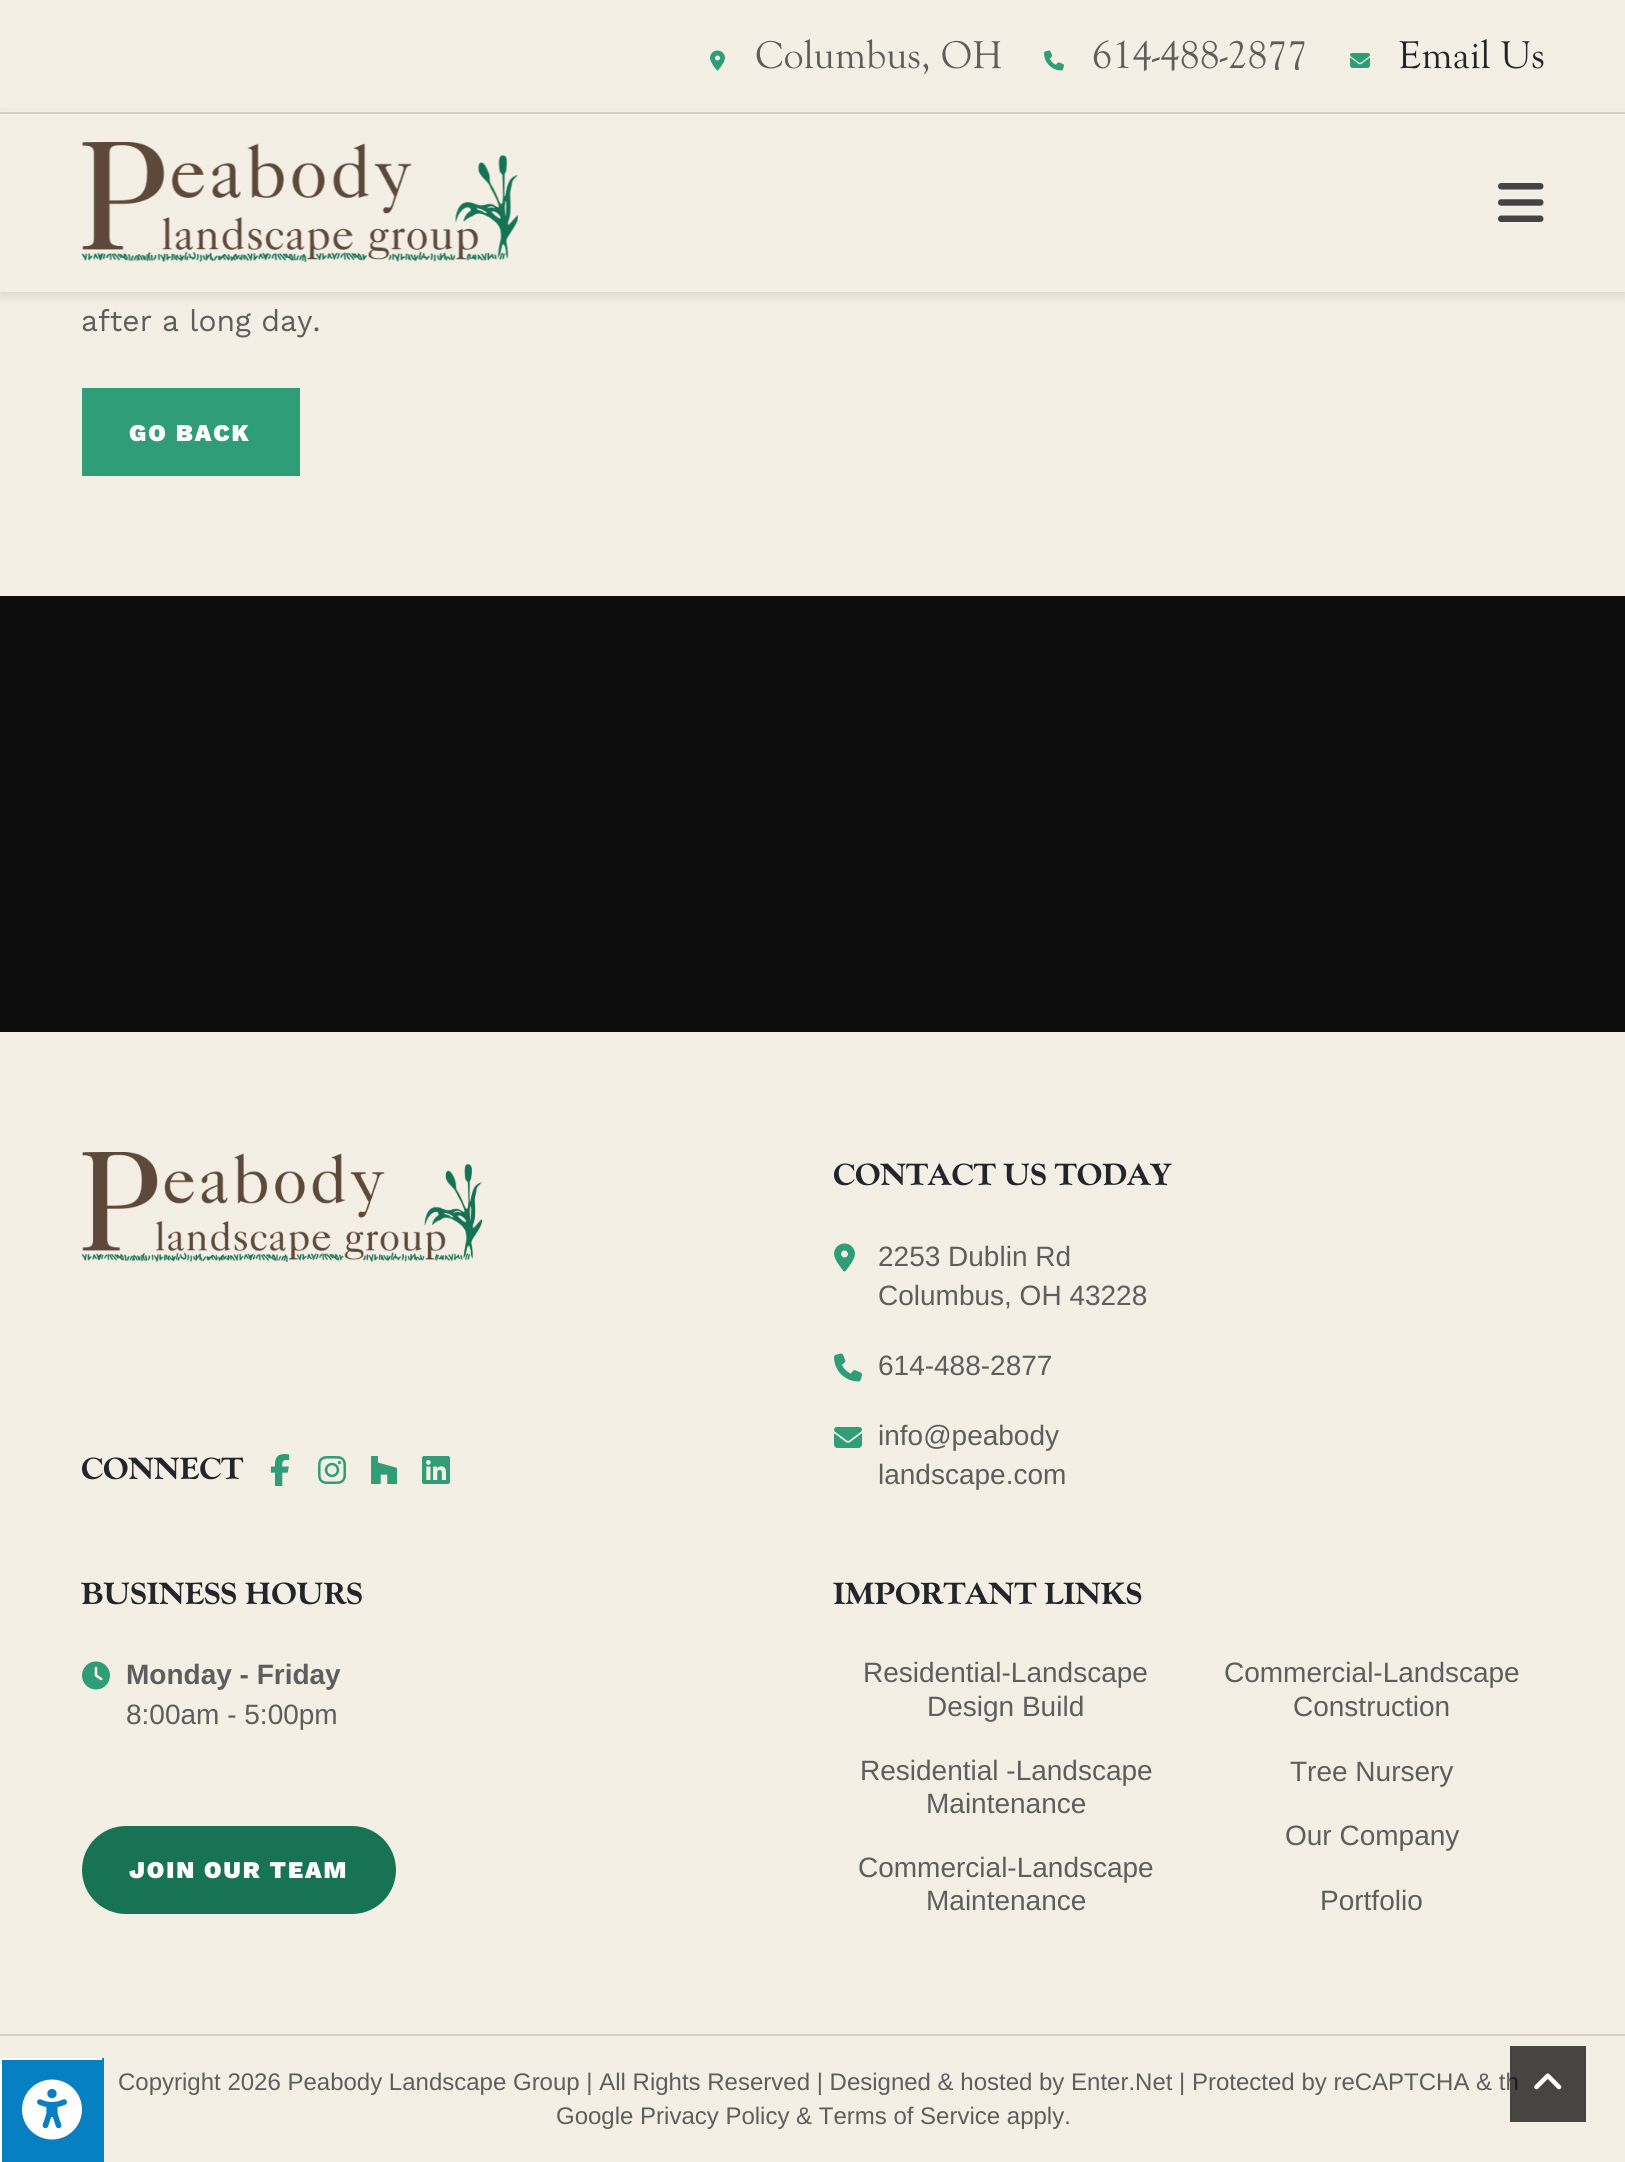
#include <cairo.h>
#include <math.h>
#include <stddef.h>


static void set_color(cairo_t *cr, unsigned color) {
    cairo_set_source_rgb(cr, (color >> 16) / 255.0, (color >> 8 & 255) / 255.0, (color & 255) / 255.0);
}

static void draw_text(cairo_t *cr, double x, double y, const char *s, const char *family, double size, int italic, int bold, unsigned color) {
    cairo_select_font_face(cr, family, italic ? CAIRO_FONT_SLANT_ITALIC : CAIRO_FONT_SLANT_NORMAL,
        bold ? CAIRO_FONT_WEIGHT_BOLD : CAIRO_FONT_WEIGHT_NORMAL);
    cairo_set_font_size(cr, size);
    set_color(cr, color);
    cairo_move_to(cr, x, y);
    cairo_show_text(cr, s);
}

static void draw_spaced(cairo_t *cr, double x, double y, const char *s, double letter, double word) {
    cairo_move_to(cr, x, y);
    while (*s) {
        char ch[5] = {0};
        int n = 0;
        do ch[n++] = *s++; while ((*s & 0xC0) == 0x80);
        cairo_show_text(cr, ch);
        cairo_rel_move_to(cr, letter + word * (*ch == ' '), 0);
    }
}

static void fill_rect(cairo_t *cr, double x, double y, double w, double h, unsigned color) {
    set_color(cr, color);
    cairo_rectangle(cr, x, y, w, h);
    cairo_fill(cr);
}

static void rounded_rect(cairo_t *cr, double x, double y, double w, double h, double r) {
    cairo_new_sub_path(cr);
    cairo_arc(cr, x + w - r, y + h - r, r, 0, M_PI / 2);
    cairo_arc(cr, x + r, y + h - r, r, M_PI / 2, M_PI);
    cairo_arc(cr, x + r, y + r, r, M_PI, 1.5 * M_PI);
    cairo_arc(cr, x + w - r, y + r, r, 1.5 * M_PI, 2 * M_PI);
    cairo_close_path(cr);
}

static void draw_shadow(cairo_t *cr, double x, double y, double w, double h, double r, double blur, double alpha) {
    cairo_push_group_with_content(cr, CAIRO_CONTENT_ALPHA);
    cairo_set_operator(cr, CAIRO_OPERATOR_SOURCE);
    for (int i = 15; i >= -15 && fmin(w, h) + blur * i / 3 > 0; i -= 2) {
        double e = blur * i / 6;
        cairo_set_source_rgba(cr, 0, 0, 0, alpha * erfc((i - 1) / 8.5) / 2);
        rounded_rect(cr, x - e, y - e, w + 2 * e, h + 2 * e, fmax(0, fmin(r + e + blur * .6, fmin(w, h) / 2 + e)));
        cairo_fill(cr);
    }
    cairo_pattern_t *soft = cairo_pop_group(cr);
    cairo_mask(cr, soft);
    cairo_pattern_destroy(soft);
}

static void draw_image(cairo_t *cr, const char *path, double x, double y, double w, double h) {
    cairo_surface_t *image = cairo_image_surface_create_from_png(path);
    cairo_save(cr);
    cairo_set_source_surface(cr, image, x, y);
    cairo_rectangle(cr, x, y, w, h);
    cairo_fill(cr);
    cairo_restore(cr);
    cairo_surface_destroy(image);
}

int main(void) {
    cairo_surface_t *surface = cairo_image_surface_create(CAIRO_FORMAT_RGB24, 1625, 2162);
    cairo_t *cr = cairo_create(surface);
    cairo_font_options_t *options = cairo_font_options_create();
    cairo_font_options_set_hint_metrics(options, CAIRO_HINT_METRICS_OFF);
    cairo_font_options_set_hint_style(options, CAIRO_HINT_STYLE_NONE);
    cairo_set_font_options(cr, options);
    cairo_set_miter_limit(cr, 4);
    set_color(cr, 0xF3EFE5);
    cairo_paint(cr);
    fill_rect(cr, 2, 2060, 100, 102, 0x0780C3);
    fill_rect(cr, 0, 2058, 104, 2, 0xFFFFFF);
    fill_rect(cr, 102, 2058, 2, 104, 0x0780C3);
    fill_rect(cr, 0, 2058, 2, 104, 0xFFFFFF);
    draw_image(cr, "assets/img1.png", 22, 2079, 60, 61);
    set_color(cr, 0x000000);
    draw_shadow(cr, 0, 116, 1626, 180, 0, 5, 0.1);
    fill_rect(cr, 1, 110, 1624, 2, 0xF3EFE5);
    fill_rect(cr, 0, 112, 1625, 2, 0xD6D0C3);
    draw_image(cr, "assets/img2.png", 710, 50, 15, 21);
    draw_text(cr, 755, 68, "Columbus, OH", "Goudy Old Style", 40, 0, 0, 0x5E5E5E);
    draw_image(cr, "assets/img3.png", 1044, 50, 20, 21);
    draw_text(cr, 1092, 68, "614-488-2877", "Goudy Old Style", 40, 0, 0, 0x5E5E5E);
    draw_image(cr, "assets/img4.png", 1350, 53, 20, 15);
    draw_text(cr, 1398, 68, "Email Us", "Goudy Old Style", 40, 0, 0, 0x22252B);
    fill_rect(cr, 0, 114, 1625, 178, 0xF3EFE5);
    draw_image(cr, "assets/img5.png", 81, 142, 437, 120);
    draw_image(cr, "assets/img6.png", 1498, 183, 46, 39);
    draw_text(cr, 81, 331, "after a long day.", "Work Sans", 30, 0, 0, 0x5E5E5E);
    fill_rect(cr, 82, 388, 218, 88, 0x2F9D78);
    cairo_select_font_face(cr, "Work Sans Black", CAIRO_FONT_SLANT_NORMAL, CAIRO_FONT_WEIGHT_NORMAL);
    cairo_set_font_size(cr, 24);
    set_color(cr, 0xFFFFFF);
    draw_spaced(cr, 129, 441, "GO BACK", 2, 0);
    fill_rect(cr, 0, 596, 1625, 436, 0x0D0D0D);
    draw_image(cr, "assets/img7.png", 82, 1152, 400, 110);
    draw_text(cr, 81, 1479, "CONNECT", "Goudy Old Style ExtraBold", 32, 0, 0, 0x22252B);
    draw_image(cr, "assets/img8.png", 270, 1454, 20, 32);
    draw_image(cr, "assets/img9.png", 318, 1456, 28, 28);
    draw_image(cr, "assets/img10.png", 371, 1456, 26, 28);
    draw_image(cr, "assets/img11.png", 422, 1456, 28, 28);
    draw_text(cr, 833, 1185, "CONTACT US TODAY", "Goudy Old Style ExtraBold", 32, 0, 0, 0x22252B);
    draw_image(cr, "assets/img12.png", 834, 1243, 21, 29);
    draw_text(cr, 878, 1266, "2253 Dublin Rd", "Liberation Sans", 28, 0, 0, 0x5E5E5E);
    draw_text(cr, 878, 1305, "Columbus, OH 43228", "Liberation Sans", 28, 0, 0, 0x5E5E5E);
    draw_image(cr, "assets/img13.png", 834, 1353, 28, 29);
    draw_text(cr, 878, 1375, "614-488-2877", "Liberation Sans", 28, 0, 0, 0x5E5E5E);
    draw_image(cr, "assets/img14.png", 834, 1427, 28, 21);
    draw_text(cr, 878, 1445, "info@peabody", "Liberation Sans", 28, 0, 0, 0x5E5E5E);
    draw_text(cr, 878, 1484, "landscape.com", "Liberation Sans", 28, 0, 0, 0x5E5E5E);
    draw_text(cr, 81, 1604, "BUSINESS HOURS", "Goudy Old Style ExtraBold", 32, 0, 0, 0x22252B);
    draw_image(cr, "assets/img15.png", 82, 1661, 28, 29);
    draw_text(cr, 126, 1684, "Monday - Friday", "Liberation Sans", 28, 0, 1, 0x5E5E5E);
    draw_text(cr, 126, 1724, "8:00am - 5:00pm", "Liberation Sans", 28, 0, 0, 0x5E5E5E);
    set_color(cr, 0x177354);
    rounded_rect(cr, 82, 1826, 314, 88, 44);
    cairo_fill(cr);
    cairo_select_font_face(cr, "Work Sans Black", CAIRO_FONT_SLANT_NORMAL, CAIRO_FONT_WEIGHT_NORMAL);
    cairo_set_font_size(cr, 24);
    set_color(cr, 0xFFFFFF);
    draw_spaced(cr, 129, 1878, "JOIN OUR TEAM", 2, 0);
    draw_text(cr, 833, 1604, "IMPORTANT LINKS", "Goudy Old Style ExtraBold", 32, 0, 0, 0x22252B);
    draw_text(cr, 863, 1682, "Residential-Landscape", "Liberation Sans", 28, 0, 0, 0x5E5E5E);
    draw_text(cr, 927, 1716, "Design Build", "Liberation Sans", 28, 0, 0, 0x5E5E5E);
    draw_text(cr, 860, 1780, "Residential -Landscape", "Liberation Sans", 28, 0, 0, 0x5E5E5E);
    draw_text(cr, 926, 1813, "Maintenance", "Liberation Sans", 28, 0, 0, 0x5E5E5E);
    draw_text(cr, 858, 1877, "Commercial-Landscape", "Liberation Sans", 28, 0, 0, 0x5E5E5E);
    draw_text(cr, 926, 1910, "Maintenance", "Liberation Sans", 28, 0, 0, 0x5E5E5E);
    draw_text(cr, 1224, 1682, "Commercial-Landscape", "Liberation Sans", 28, 0, 0, 0x5E5E5E);
    draw_text(cr, 1293, 1716, "Construction", "Liberation Sans", 28, 0, 0, 0x5E5E5E);
    draw_text(cr, 1290, 1781, "Tree Nursery", "Liberation Sans", 28, 0, 0, 0x5E5E5E);
    draw_text(cr, 1285, 1845, "Our Company", "Liberation Sans", 28, 0, 0, 0x5E5E5E);
    draw_text(cr, 1320, 1910, "Portfolio", "Liberation Sans", 28, 0, 0, 0x5E5E5E);
    fill_rect(cr, 0, 2034, 1625, 2, 0xD6D0C3);
    draw_text(cr, 118, 2090, "Copyright 2026 Peabody Landscape Group | All Rights Reserved | Designed & hosted by Enter.Net | Protected by reCAPTCHA & th", "Liberation Sans", 24, 0, 0, 0x5E5E5E);
    draw_text(cr, 556, 2124, "Google Privacy Policy & Terms of Service apply.", "Liberation Sans", 24, 0, 0, 0x5E5E5E);
    cairo_set_source_rgba(cr, 0, 0, 0, 0.71);
    cairo_rectangle(cr, 1510, 2046, 76, 76);
    cairo_fill(cr);
    draw_image(cr, "assets/img16.png", 1534, 2073, 28, 17);
    cairo_surface_write_to_png(surface, "output.png");
    cairo_font_options_destroy(options);
    cairo_destroy(cr);
    cairo_surface_destroy(surface);
    return 0;
}
